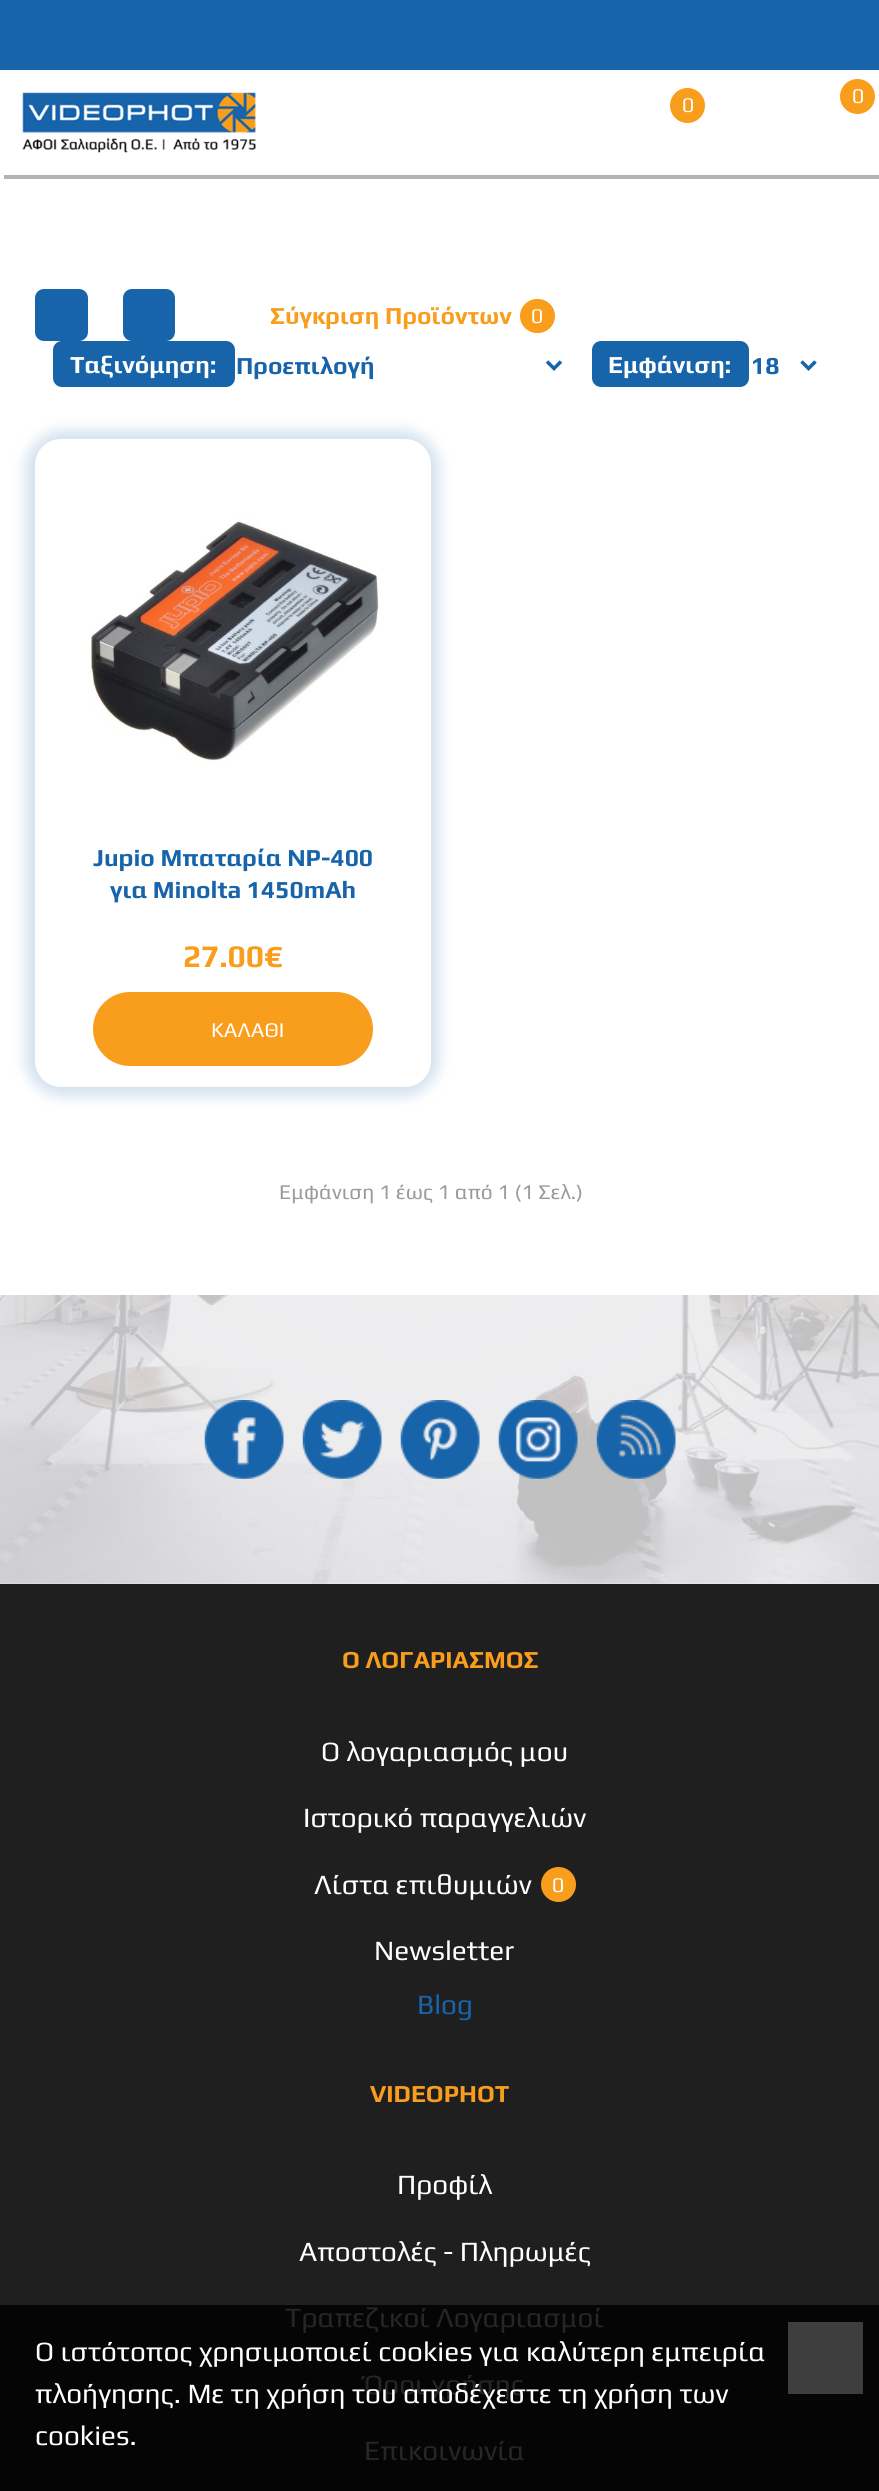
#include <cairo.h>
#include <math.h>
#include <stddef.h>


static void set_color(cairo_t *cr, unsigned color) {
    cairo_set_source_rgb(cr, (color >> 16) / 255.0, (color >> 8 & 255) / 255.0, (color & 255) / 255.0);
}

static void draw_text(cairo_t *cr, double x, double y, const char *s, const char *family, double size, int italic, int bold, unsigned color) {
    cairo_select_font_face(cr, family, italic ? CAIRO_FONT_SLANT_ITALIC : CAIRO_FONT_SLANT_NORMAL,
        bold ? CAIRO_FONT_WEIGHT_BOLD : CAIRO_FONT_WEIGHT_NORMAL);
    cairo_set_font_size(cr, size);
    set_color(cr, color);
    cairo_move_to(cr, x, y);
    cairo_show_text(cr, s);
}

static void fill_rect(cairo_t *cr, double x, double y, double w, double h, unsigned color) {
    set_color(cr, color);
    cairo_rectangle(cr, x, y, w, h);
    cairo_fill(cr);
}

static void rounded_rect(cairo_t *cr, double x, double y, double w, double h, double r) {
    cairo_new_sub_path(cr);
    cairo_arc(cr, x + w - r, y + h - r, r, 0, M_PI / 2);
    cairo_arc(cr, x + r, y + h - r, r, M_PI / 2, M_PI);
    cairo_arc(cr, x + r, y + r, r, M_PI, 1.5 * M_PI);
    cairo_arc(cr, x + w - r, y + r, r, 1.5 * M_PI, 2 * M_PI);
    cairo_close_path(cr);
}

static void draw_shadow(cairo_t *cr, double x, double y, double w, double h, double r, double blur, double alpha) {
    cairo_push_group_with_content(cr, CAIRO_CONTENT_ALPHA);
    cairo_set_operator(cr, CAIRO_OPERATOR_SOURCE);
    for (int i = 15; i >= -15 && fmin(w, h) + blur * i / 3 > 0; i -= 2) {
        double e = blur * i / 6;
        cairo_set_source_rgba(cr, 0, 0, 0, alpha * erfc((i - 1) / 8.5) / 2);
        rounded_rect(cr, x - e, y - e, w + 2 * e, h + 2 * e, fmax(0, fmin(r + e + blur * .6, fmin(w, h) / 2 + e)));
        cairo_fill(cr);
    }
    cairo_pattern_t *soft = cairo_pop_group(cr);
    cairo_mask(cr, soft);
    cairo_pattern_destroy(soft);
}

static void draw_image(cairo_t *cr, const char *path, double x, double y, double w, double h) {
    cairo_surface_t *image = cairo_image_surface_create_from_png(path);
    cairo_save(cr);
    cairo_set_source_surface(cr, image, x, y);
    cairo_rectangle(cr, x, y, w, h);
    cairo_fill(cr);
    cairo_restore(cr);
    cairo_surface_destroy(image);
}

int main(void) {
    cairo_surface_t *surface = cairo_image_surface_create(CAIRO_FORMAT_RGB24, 879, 2491);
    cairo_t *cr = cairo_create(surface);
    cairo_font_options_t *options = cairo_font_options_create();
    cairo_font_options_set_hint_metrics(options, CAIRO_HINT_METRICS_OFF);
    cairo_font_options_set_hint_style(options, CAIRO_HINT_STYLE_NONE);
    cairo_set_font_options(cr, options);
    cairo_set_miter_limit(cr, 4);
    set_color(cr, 0xFFFFFF);
    cairo_paint(cr);
    fill_rect(cr, 0, 0, 879, 70, 0x1864AB);
    set_color(cr, 0xB3B3B3);
    cairo_new_path(cr);
    cairo_move_to(cr, 4, 175);
    cairo_line_to(cr, 4, 179);
    cairo_line_to(cr, 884, 179);
    cairo_line_to(cr, 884, 74);
    cairo_line_to(cr, 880, 74);
    cairo_line_to(cr, 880, 175);
    cairo_close_path(cr);
    cairo_fill(cr);
    draw_image(cr, "assets/img1.png", 22, 92, 234, 61);
    set_color(cr, 0xF99D1C);
    cairo_arc(cr, 857.5, 96.5, 17.5, 0, 2 * M_PI);
    cairo_fill(cr);
    draw_text(cr, 852, 103, "0", "Play", 21, 0, 0, 0xFFFFFF);
    set_color(cr, 0xF99D1C);
    cairo_new_path(cr);
    cairo_arc(cr, 687.5, 105.5, 17.5, 0, 2 * M_PI);
    cairo_fill(cr);
    draw_text(cr, 682, 112, "0", "Play", 21, 0, 0, 0xFFFFFF);
    set_color(cr, 0x1864AB);
    rounded_rect(cr, 35, 289, 53, 52, 9);
    cairo_fill(cr);
    rounded_rect(cr, 123, 289, 52, 52, 9);
    cairo_fill(cr);
    draw_text(cr, 270, 324, "Σύγκριση Προϊόντων", "Play", 24.5, 0, 1, 0xF99D1C);
    rounded_rect(cr, 520, 299, 35, 34, 17);
    cairo_fill(cr);
    draw_text(cr, 531, 323, "0", "Play", 21, 0, 0, 0xFFFFFF);
    set_color(cr, 0x1864AB);
    rounded_rect(cr, 53, 341, 182, 46, 9);
    cairo_fill(cr);
    draw_text(cr, 70, 373, "Ταξινόμηση:", "Play", 24.5, 0, 1, 0xFFFFFF);
    cairo_new_path(cr);
    cairo_move_to(cr, 547, 361.5);
    cairo_line_to(cr, 554, 368.5);
    cairo_line_to(cr, 561, 361.5);
    set_color(cr, 0x1864AB);
    cairo_set_line_width(cr, 3.5);
    cairo_stroke(cr);
    draw_text(cr, 236, 374, "Προεπιλογή", "Play", 24.5, 0, 1, 0x1864AB);
    rounded_rect(cr, 592, 341, 157, 46, 9);
    cairo_fill(cr);
    draw_text(cr, 608, 373, "Εμφάνιση:", "Play", 24.5, 0, 1, 0xFFFFFF);
    cairo_new_path(cr);
    cairo_move_to(cr, 801.5, 361.5);
    cairo_line_to(cr, 808.5, 368.5);
    cairo_line_to(cr, 815.5, 361.5);
    set_color(cr, 0x1864AB);
    cairo_stroke(cr);
    draw_text(cr, 751, 374, "18", "Play", 24.5, 0, 1, 0x1864AB);
    set_color(cr, 0x1864AB);
    draw_shadow(cr, 26, 431, 413, 665, 35, 7, 0.2);
    set_color(cr, 0xFFFFFF);
    rounded_rect(cr, 35, 439, 396, 648, 26);
    cairo_fill(cr);
    draw_image(cr, "assets/img2.png", 90, 517, 289, 245);
    draw_text(cr, 93, 866, "Jupio Μπαταρία NP-400", "Play", 24.5, 0, 1, 0x1864AB);
    draw_text(cr, 110, 898, "για Minolta 1450mAh", "Play", 24.5, 0, 1, 0x1864AB);
    draw_text(cr, 183, 967, "27.00€", "Play", 31.5, 0, 1, 0xF99D1C);
    rounded_rect(cr, 93, 992, 280, 74, 37);
    cairo_fill(cr);
    draw_text(cr, 211, 1037, "ΚΑΛΑΘΙ", "Play", 21, 0, 0, 0xFFFFFF);
    draw_text(cr, 279, 1199, "Εμφάνιση 1 έως 1 από 1 (1 Σελ.)", "Play", 21, 0, 0, 0x9A9A9A);
    draw_image(cr, "assets/img3.png", 0, 1295, 879, 289);
    draw_image(cr, "assets/img4.png", 204, 1400, 80, 79);
    draw_image(cr, "assets/img5.png", 302, 1400, 80, 79);
    draw_image(cr, "assets/img6.png", 400, 1400, 80, 79);
    draw_image(cr, "assets/img7.png", 498, 1400, 80, 79);
    draw_image(cr, "assets/img8.png", 596, 1400, 80, 79);
    fill_rect(cr, 0, 1584, 879, 721, 0x1F1F1F);
    fill_rect(cr, 0, 2305, 879, 186, 0x050505);
    draw_text(cr, 342, 1668, "Ο ΛΟΓΑΡΙΑΣΜΟΣ", "Play", 24.5, 0, 1, 0xF99D1C);
    draw_text(cr, 321, 1761, "Ο λογαριασμός μου", "Play", 28, 0, 0, 0xFFFFFF);
    draw_text(cr, 303, 1827, "Ιστορικό παραγγελιών", "Play", 28, 0, 0, 0xFFFFFF);
    draw_text(cr, 314, 1894, "Λίστα επιθυμιών", "Play", 28, 0, 0, 0xFFFFFF);
    set_color(cr, 0xF99D1C);
    cairo_new_path(cr);
    cairo_arc(cr, 558.5, 1884.5, 17.5, 0, 2 * M_PI);
    cairo_fill(cr);
    draw_text(cr, 552, 1892, "0", "Play", 21, 0, 0, 0xFFFFFF);
    draw_text(cr, 374, 1960, "Newsletter", "Play", 28, 0, 0, 0xFFFFFF);
    draw_text(cr, 417, 2014, "Blog", "Play", 28, 0, 0, 0x1864AB);
    draw_text(cr, 370, 2102, "VIDEOPHOT", "Play", 24.5, 0, 1, 0xF99D1C);
    draw_text(cr, 397, 2194, "Προφίλ", "Play", 28, 0, 0, 0xFFFFFF);
    draw_text(cr, 299, 2261, "Αποστολές - Πληρωμές", "Play", 28, 0, 0, 0xFFFFFF);
    draw_text(cr, 285, 2327, "Τραπεζικοί Λογαριασμοί", "Play", 28, 0, 0, 0x262626);
    draw_text(cr, 364, 2394, "Όροι χρήσης", "Play", 28, 0, 0, 0x262626);
    draw_text(cr, 364, 2460, "Επικοινωνία", "Play", 28, 0, 0, 0x262626);
    draw_text(cr, 35, 2361, "Ο ιστότοπος χρησιμοποιεί cookies για καλύτερη εμπειρία", "Play", 28, 0, 0, 0xFFFFFF);
    draw_text(cr, 35, 2403, "πλοήγησης. Με τη χρήση του αποδέχεστε τη χρήση των", "Play", 28, 0, 0, 0xFFFFFF);
    draw_text(cr, 35, 2445, "cookies.", "Play", 28, 0, 0, 0xFFFFFF);
    fill_rect(cr, 788, 2322, 75, 72, 0x3E3E3E);
    cairo_surface_write_to_png(surface, "output.png");
    cairo_font_options_destroy(options);
    cairo_destroy(cr);
    cairo_surface_destroy(surface);
    return 0;
}
